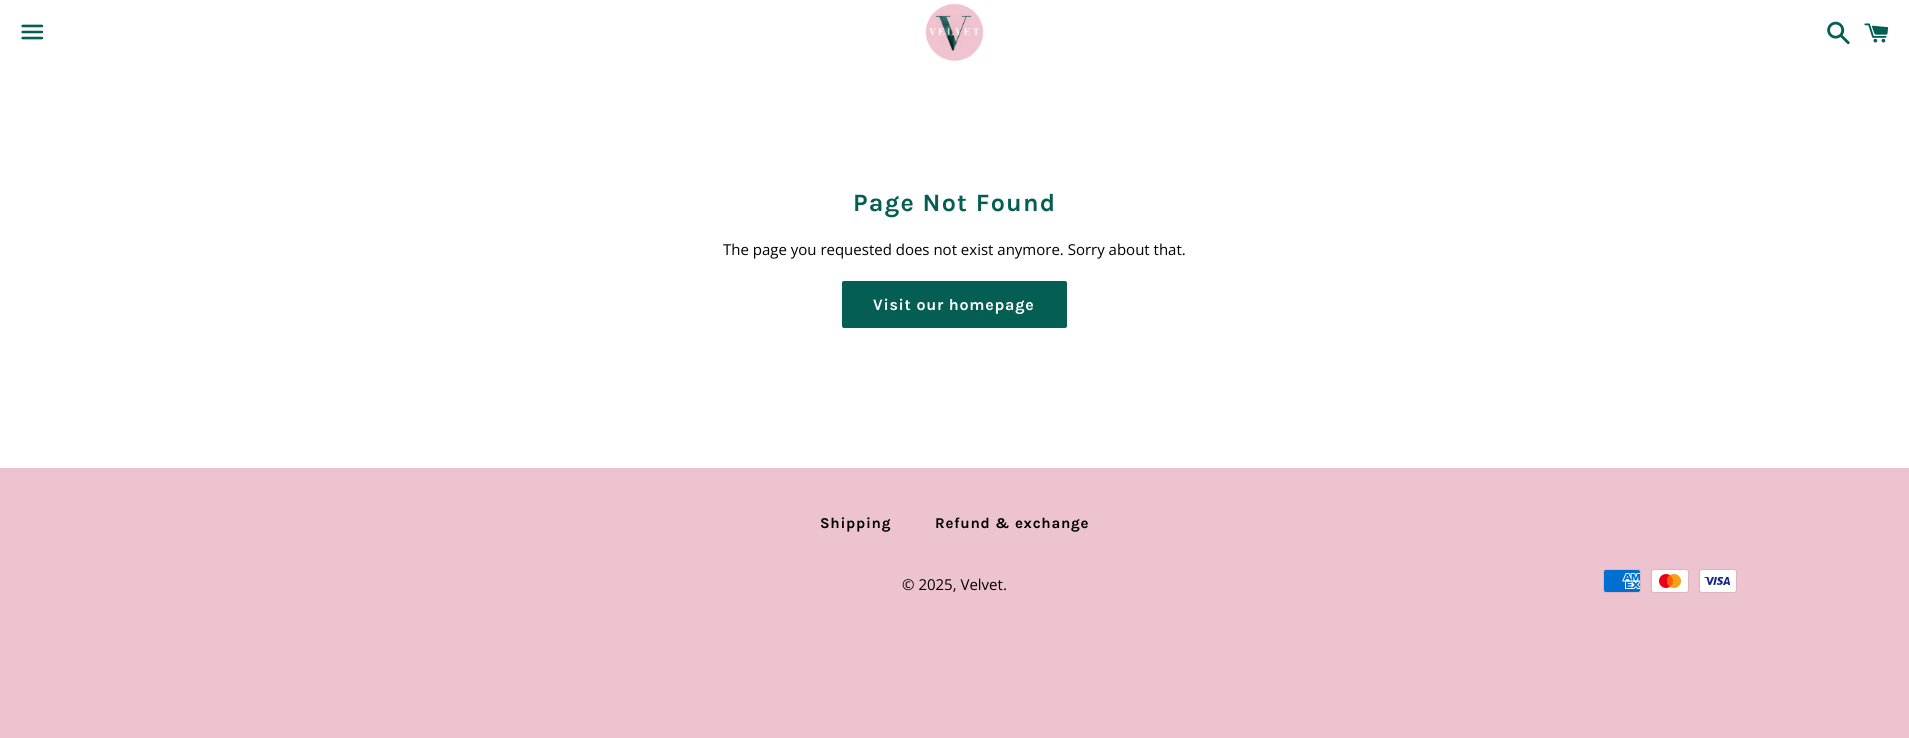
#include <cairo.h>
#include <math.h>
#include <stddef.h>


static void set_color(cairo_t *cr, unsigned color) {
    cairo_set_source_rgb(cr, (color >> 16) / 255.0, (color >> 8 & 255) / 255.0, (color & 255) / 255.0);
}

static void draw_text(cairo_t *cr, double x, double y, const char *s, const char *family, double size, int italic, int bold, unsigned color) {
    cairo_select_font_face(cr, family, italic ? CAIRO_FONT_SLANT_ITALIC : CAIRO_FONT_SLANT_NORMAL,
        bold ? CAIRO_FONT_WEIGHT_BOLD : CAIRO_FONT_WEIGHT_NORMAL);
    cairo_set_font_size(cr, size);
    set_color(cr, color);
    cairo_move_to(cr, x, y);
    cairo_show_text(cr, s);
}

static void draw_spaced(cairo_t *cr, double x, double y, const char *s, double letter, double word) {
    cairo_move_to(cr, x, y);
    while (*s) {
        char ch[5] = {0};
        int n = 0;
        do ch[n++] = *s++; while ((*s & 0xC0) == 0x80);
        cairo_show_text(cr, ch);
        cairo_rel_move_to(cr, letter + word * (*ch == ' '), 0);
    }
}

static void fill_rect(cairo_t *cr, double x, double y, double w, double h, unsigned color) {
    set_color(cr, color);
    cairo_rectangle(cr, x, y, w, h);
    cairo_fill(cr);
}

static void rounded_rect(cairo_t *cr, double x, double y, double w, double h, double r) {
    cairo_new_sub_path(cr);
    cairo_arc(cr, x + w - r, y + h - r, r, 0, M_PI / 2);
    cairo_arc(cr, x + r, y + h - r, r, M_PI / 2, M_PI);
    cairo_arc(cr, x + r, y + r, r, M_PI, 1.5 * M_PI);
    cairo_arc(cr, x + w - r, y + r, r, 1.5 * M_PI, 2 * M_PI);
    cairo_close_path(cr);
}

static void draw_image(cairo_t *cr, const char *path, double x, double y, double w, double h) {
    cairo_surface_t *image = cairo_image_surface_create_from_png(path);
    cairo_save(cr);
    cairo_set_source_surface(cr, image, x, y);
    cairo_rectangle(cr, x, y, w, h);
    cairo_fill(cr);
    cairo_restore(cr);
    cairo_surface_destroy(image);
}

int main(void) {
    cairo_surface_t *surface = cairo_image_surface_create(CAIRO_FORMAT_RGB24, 1909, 738);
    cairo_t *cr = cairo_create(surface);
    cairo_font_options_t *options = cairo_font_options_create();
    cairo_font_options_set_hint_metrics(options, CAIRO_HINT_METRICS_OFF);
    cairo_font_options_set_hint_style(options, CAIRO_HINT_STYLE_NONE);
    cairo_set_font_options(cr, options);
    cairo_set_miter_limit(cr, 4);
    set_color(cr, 0xEDC3CF);
    cairo_paint(cr);
    fill_rect(cr, 0, 0, 1909, 468, 0xFFFFFF);
    draw_image(cr, "assets/img1.png", 21, 24, 23, 16);
    draw_image(cr, "assets/img2.png", 925, 3, 59, 58);
    draw_image(cr, "assets/img3.png", 1827, 21, 23, 24);
    draw_image(cr, "assets/img4.png", 1864, 23, 25, 20);
    cairo_select_font_face(cr, "Karla", CAIRO_FONT_SLANT_NORMAL, CAIRO_FONT_WEIGHT_BOLD);
    cairo_set_font_size(cr, 25);
    set_color(cr, 0x055E53);
    draw_spaced(cr, 853, 211, "Page Not Found", 1.25, 0);
    draw_text(cr, 723, 255, "The page you requested does not exist anymore. Sorry about that.", "Open Sans", 15, 0, 0, 0x000000);
    set_color(cr, 0x055E53);
    rounded_rect(cr, 842, 281, 225, 47, 2);
    cairo_fill(cr);
    cairo_select_font_face(cr, "Karla", CAIRO_FONT_SLANT_NORMAL, CAIRO_FONT_WEIGHT_BOLD);
    cairo_set_font_size(cr, 16);
    set_color(cr, 0xFFFFFF);
    draw_spaced(cr, 873, 310, "Visit our homepage", 0.75, 0);
    cairo_set_font_size(cr, 15);
    set_color(cr, 0x000000);
    draw_spaced(cr, 820, 528, "Shipping", 0.75, 0);
    draw_spaced(cr, 935, 528, "Refund & exchange", 0.75, 0);
    draw_text(cr, 902, 590, "© 2025, Velvet.", "Open Sans", 15, 0, 0, 0x000000);
    draw_image(cr, "assets/img5.png", 1603, 569, 38, 24);
    draw_image(cr, "assets/img6.png", 1651, 569, 38, 24);
    draw_image(cr, "assets/img7.png", 1699, 569, 38, 24);
    cairo_surface_write_to_png(surface, "output.png");
    cairo_font_options_destroy(options);
    cairo_destroy(cr);
    cairo_surface_destroy(surface);
    return 0;
}
